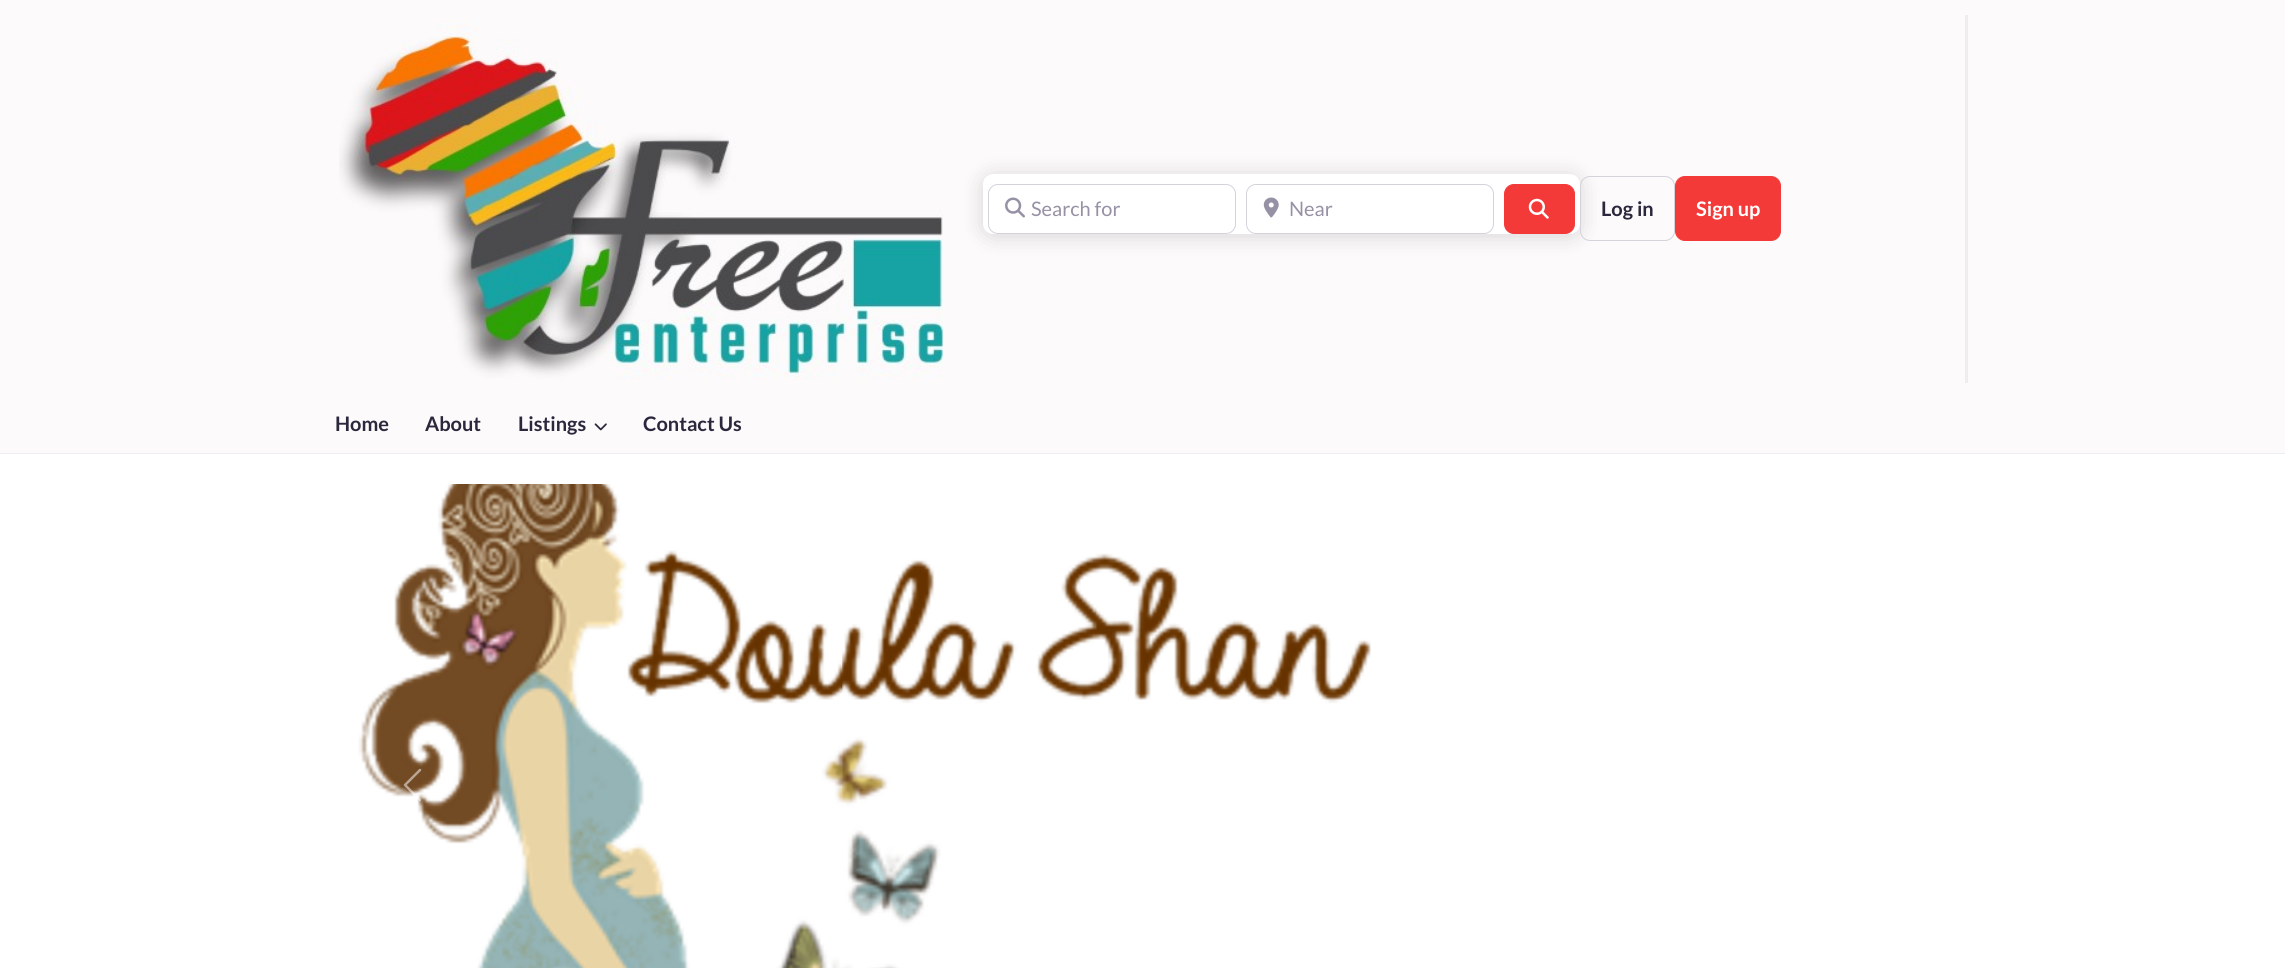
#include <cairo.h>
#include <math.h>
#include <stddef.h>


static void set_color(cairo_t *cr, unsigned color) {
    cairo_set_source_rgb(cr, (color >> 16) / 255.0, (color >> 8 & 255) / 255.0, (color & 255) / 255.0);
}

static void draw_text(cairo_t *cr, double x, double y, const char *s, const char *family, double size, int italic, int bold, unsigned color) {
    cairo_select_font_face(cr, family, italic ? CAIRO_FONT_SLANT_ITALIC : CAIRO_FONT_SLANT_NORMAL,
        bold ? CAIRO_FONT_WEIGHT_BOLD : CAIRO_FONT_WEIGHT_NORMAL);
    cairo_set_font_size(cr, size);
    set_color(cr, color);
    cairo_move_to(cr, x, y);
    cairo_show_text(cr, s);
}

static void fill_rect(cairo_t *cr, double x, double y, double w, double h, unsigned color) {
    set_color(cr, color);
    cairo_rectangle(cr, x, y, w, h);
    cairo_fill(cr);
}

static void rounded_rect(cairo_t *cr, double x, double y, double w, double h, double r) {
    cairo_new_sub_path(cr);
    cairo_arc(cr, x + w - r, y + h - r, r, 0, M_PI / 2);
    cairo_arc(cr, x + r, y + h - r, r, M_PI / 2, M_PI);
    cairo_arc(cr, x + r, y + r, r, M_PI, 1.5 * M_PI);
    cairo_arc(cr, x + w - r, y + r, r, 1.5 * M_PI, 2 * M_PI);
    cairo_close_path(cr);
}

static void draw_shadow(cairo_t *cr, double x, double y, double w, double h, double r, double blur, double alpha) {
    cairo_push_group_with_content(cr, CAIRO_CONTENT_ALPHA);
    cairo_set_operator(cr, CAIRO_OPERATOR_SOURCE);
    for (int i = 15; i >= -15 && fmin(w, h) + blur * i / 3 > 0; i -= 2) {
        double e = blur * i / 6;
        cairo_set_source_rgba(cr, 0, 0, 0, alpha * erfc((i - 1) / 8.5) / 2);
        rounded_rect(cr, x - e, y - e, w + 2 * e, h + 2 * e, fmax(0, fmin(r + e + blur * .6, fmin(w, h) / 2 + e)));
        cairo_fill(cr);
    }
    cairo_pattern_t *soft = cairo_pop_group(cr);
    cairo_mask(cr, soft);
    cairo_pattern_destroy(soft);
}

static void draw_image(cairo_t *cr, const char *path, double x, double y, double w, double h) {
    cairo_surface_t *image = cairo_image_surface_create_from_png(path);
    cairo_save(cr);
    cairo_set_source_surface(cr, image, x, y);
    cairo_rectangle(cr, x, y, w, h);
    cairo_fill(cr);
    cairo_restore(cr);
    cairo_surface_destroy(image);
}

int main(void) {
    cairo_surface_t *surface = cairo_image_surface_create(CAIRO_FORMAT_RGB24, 2285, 968);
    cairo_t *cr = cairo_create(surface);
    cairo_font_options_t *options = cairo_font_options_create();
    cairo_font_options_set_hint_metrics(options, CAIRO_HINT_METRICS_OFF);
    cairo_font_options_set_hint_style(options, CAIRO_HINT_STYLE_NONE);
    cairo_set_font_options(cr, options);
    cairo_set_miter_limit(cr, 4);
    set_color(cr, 0xFFFFFF);
    cairo_paint(cr);
    fill_rect(cr, 0, 0, 2285, 453, 0xFCFAFB);
    fill_rect(cr, 0, 453, 2285, 1, 0xEFECF3);
    draw_image(cr, "assets/img1.png", 339, 20, 604, 360);
    set_color(cr, 0x000000);
    draw_shadow(cr, 983, 176, 597, 60, 10, 11, 0.15);
    set_color(cr, 0xFFFFFF);
    rounded_rect(cr, 983, 174, 597, 60, 10);
    cairo_fill(cr);
    rounded_rect(cr, 988.5, 184.5, 247, 49, 9.5);
    set_color(cr, 0xD5D2DC);
    cairo_set_line_width(cr, 1);
    cairo_stroke(cr);
    draw_image(cr, "assets/img2.png", 1005, 197, 20, 21);
    draw_text(cr, 1031, 216, "Search for", "Lato", 20, 0, 0, 0x9691A4);
    fill_rect(cr, 1965, 15, 3, 368, 0xEEEEEF);
    rounded_rect(cr, 1246.5, 184.5, 247, 49, 9.5);
    set_color(cr, 0xD5D2DC);
    cairo_stroke(cr);
    draw_image(cr, "assets/img3.png", 1263, 197, 16, 21);
    draw_text(cr, 1289, 216, "Near", "Lato", 20, 0, 0, 0x9691A4);
    set_color(cr, 0xF43939);
    rounded_rect(cr, 1504.5, 184.5, 70, 49, 9.5);
    cairo_fill_preserve(cr);
    cairo_stroke(cr);
    draw_image(cr, "assets/img4.png", 1528, 198, 21, 21);
    rounded_rect(cr, 1580.5, 176.5, 94, 64, 9.5);
    set_color(cr, 0xD5D2DC);
    cairo_stroke(cr);
    draw_text(cr, 1601, 216, "Log in", "Lato", 20, 0, 1, 0x2B273C);
    set_color(cr, 0xF43939);
    rounded_rect(cr, 1675.5, 176.5, 105, 64, 9.5);
    cairo_fill_preserve(cr);
    cairo_stroke(cr);
    draw_text(cr, 1696, 216, "Sign up", "Lato", 20, 0, 1, 0xFFFFFF);
    draw_text(cr, 335, 431, "Home", "Lato", 20, 0, 1, 0x2B273C);
    draw_text(cr, 425, 431, "About", "Lato", 20, 0, 1, 0x2B273C);
    draw_text(cr, 518, 431, "Listings", "Lato", 20, 0, 1, 0x2B273C);
    draw_image(cr, "assets/img5.png", 594, 423, 13, 8);
    draw_text(cr, 643, 431, "Contact Us", "Lato", 20, 0, 1, 0x2B273C);
    draw_image(cr, "assets/img6.png", 358, 484, 1013, 484);
    draw_image(cr, "assets/img7.png", 403, 768, 19, 34);
    cairo_surface_write_to_png(surface, "output.png");
    cairo_font_options_destroy(options);
    cairo_destroy(cr);
    cairo_surface_destroy(surface);
    return 0;
}
